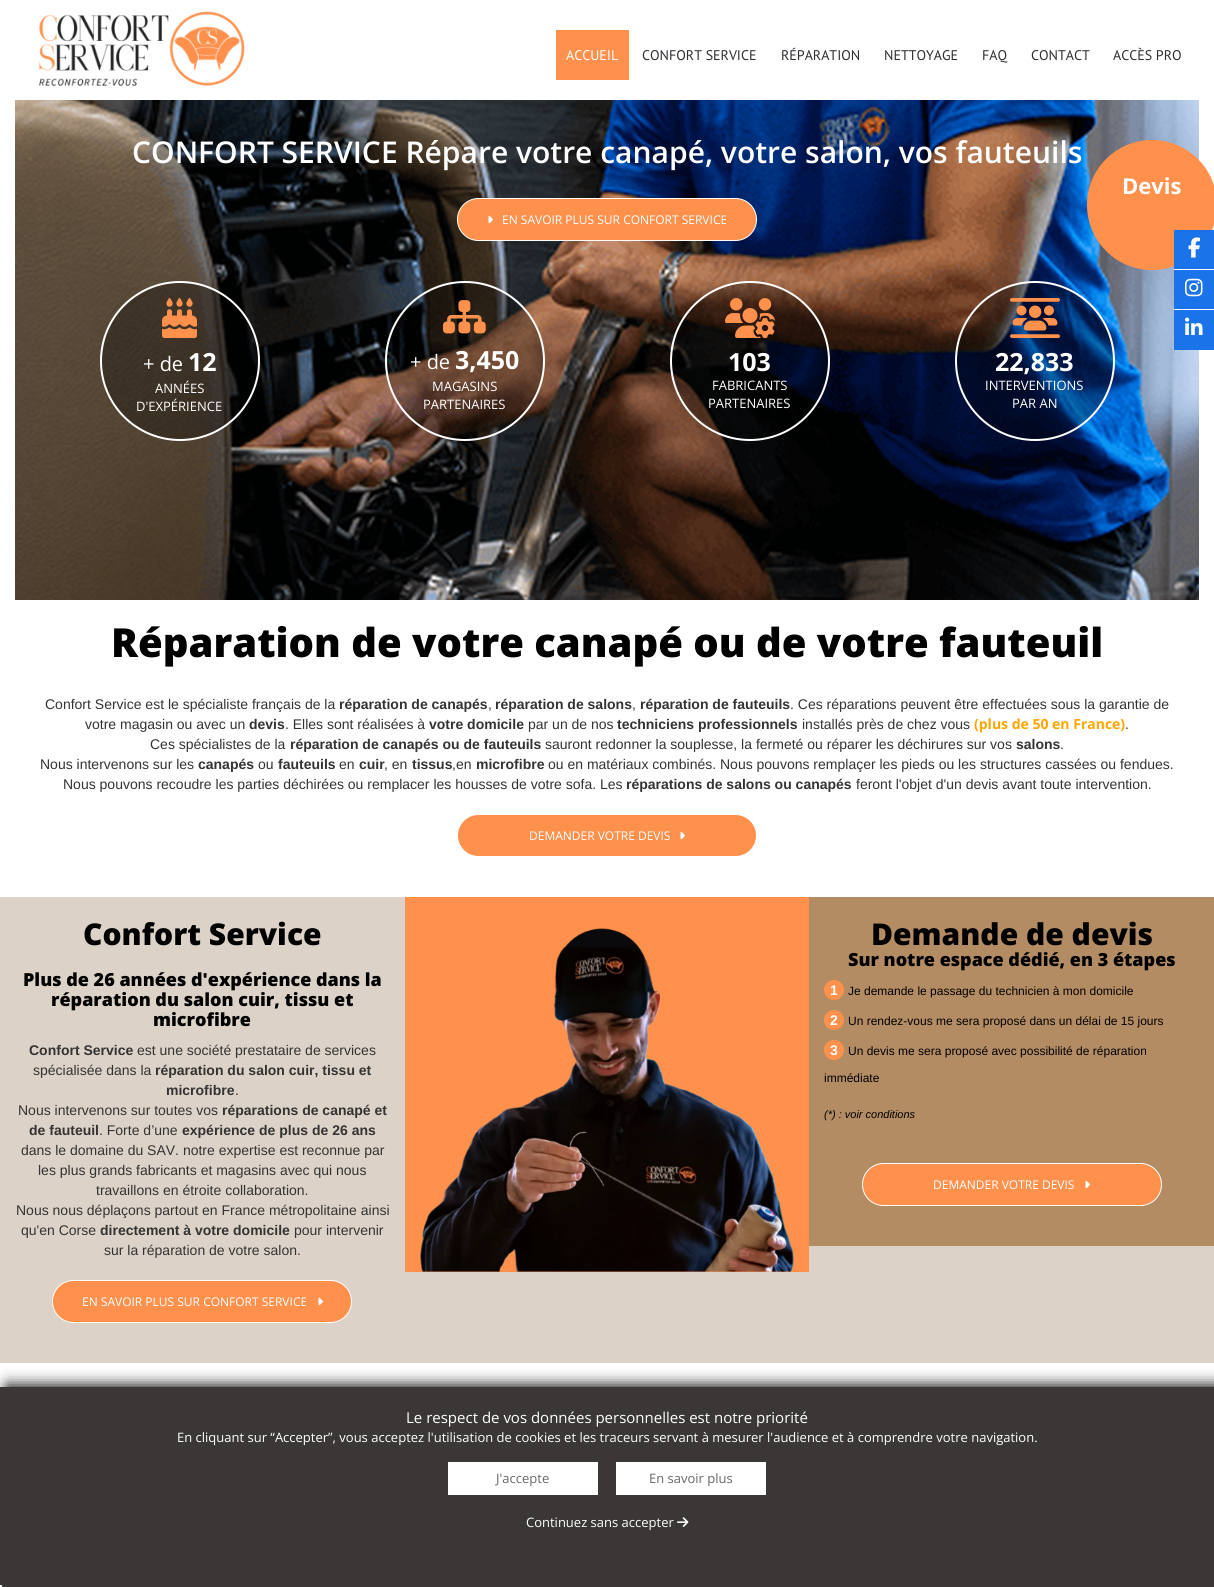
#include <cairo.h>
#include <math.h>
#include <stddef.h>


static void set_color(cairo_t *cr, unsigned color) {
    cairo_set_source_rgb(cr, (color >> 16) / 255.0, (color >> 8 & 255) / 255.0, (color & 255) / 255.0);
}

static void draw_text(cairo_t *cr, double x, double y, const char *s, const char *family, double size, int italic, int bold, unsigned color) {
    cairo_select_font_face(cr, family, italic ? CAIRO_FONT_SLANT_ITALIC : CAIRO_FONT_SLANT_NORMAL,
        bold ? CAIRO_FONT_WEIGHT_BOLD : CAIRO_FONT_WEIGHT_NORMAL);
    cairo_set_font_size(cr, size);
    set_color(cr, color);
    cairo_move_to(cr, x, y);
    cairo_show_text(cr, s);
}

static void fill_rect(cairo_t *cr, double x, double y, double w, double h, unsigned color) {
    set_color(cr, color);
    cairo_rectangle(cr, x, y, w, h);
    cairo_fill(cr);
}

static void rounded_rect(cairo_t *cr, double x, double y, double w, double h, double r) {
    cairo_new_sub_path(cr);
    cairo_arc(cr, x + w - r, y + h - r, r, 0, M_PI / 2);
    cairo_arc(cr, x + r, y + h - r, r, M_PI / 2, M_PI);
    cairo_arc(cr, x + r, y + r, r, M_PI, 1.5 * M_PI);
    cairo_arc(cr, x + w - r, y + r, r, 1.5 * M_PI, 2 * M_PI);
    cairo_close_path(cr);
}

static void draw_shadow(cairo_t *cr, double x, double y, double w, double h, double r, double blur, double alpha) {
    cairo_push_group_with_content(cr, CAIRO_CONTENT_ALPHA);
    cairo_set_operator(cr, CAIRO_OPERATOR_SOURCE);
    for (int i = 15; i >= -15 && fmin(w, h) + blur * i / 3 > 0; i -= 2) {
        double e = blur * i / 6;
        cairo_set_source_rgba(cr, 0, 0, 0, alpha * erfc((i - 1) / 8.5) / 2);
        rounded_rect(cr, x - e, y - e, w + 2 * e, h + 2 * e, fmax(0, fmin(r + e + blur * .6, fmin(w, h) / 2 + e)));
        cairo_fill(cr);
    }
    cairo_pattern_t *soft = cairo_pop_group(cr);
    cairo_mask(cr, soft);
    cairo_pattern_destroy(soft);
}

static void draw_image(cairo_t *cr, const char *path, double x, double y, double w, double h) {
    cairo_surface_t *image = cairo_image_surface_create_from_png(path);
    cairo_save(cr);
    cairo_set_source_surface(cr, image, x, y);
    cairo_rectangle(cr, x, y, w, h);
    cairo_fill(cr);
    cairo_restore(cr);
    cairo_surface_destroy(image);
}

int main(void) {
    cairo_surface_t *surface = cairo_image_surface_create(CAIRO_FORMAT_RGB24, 1214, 1587);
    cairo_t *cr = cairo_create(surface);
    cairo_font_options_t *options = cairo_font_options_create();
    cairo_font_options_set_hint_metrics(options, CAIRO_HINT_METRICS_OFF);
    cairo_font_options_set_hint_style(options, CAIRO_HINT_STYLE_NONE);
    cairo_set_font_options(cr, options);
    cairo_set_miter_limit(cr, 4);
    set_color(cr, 0xFFFFFF);
    cairo_paint(cr);
    draw_image(cr, "assets/img1.png", 38, 11, 207, 75);
    fill_rect(cr, 556, 30, 73, 50, 0xFF914D);
    draw_text(cr, 566, 60, "ACCUEIL", "PT Sans", 14, 0, 0, 0xFFFFFF);
    draw_text(cr, 642, 60, "CONFORT SERVICE", "PT Sans", 14, 0, 0, 0x2D2E33);
    draw_text(cr, 781, 60, "RÉPARATION", "PT Sans", 14, 0, 0, 0x2D2E33);
    draw_text(cr, 884, 60, "NETTOYAGE", "PT Sans", 14, 0, 0, 0x2D2E33);
    draw_text(cr, 982, 60, "FAQ", "PT Sans", 14, 0, 0, 0x2D2E33);
    draw_text(cr, 1031, 60, "CONTACT", "PT Sans", 14, 0, 0, 0x2D2E33);
    draw_text(cr, 1113, 60, "ACCÈS PRO", "PT Sans", 14, 0, 0, 0x2D2E33);
    draw_image(cr, "assets/img2.png", 15, 100, 1184, 500);
    draw_text(cr, 132, 163, "CONFORT SERVICE Répare votre canapé, votre salon, vos fauteuils", "Open Sans SemiBold", 30, 0, 0, 0xFFFFFF);
    set_color(cr, 0xFF914D);
    cairo_new_path(cr);
    cairo_arc(cr, 1152, 205, 65, 0, 2 * M_PI);
    cairo_fill(cr);
    draw_text(cr, 1122, 194, "Devis", "Open Sans", 22, 0, 1, 0xFFFFFF);
    set_color(cr, 0xFF914D);
    rounded_rect(cr, 457.5, 198.5, 299, 42, 21);
    cairo_fill_preserve(cr);
    set_color(cr, 0xFFFFFF);
    cairo_set_line_width(cr, 1);
    cairo_stroke(cr);
    draw_image(cr, "assets/img3.png", 488, 215, 5, 9);
    draw_text(cr, 502, 224, "EN SAVOIR PLUS SUR CONFORT SERVICE", "Open Sans", 12, 0, 0, 0xFFFFFF);
    cairo_set_source_rgba(cr, 0, 0, 0, 0.3);
    cairo_new_path(cr);
    cairo_arc(cr, 180, 361, 79, 0, 2 * M_PI);
    cairo_fill_preserve(cr);
    set_color(cr, 0xFFFFFF);
    cairo_set_line_width(cr, 2);
    cairo_stroke(cr);
    draw_image(cr, "assets/img4.png", 162, 298, 35, 40);
    draw_text(cr, 143, 371, "+ de", "Open Sans", 20, 0, 0, 0xFFFFFF);
    draw_text(cr, 188, 371, "12", "Open Sans", 25, 0, 1, 0xFFFFFF);
    draw_text(cr, 155, 393, "ANNÉES", "Open Sans", 13, 0, 0, 0xFFFFFF);
    draw_text(cr, 136, 411, "D'EXPÉRIENCE", "Open Sans", 13, 0, 0, 0xFFFFFF);
    cairo_set_source_rgba(cr, 0, 0, 0, 0.3);
    cairo_new_path(cr);
    cairo_arc(cr, 465, 361, 79, 0, 2 * M_PI);
    cairo_fill_preserve(cr);
    set_color(cr, 0xFFFFFF);
    cairo_stroke(cr);
    draw_image(cr, "assets/img5.png", 443, 300, 43, 34);
    draw_text(cr, 410, 369, "+ de", "Open Sans", 20, 0, 0, 0xFFFFFF);
    draw_text(cr, 455, 369, "3,450", "Open Sans", 25, 0, 1, 0xFFFFFF);
    draw_text(cr, 432, 391, "MAGASINS", "Open Sans", 13, 0, 0, 0xFFFFFF);
    draw_text(cr, 423, 409, "PARTENAIRES", "Open Sans", 13, 0, 0, 0xFFFFFF);
    cairo_set_source_rgba(cr, 0, 0, 0, 0.3);
    cairo_new_path(cr);
    cairo_arc(cr, 750, 361, 79, 0, 2 * M_PI);
    cairo_fill_preserve(cr);
    set_color(cr, 0xFFFFFF);
    cairo_stroke(cr);
    draw_image(cr, "assets/img6.png", 725, 298, 50, 40);
    draw_text(cr, 728, 371, "103", "Open Sans", 25, 0, 1, 0xFFFFFF);
    draw_text(cr, 712, 390, "FABRICANTS", "Open Sans", 13, 0, 0, 0xFFFFFF);
    draw_text(cr, 708, 408, "PARTENAIRES", "Open Sans", 13, 0, 0, 0xFFFFFF);
    cairo_set_source_rgba(cr, 0, 0, 0, 0.3);
    cairo_new_path(cr);
    cairo_arc(cr, 1035, 361, 79, 0, 2 * M_PI);
    cairo_fill_preserve(cr);
    set_color(cr, 0xFFFFFF);
    cairo_stroke(cr);
    draw_image(cr, "assets/img7.png", 1010, 298, 50, 40);
    draw_text(cr, 995, 371, "22,833", "Open Sans", 25, 0, 1, 0xFFFFFF);
    draw_text(cr, 985, 390, "INTERVENTIONS", "Open Sans", 13, 0, 0, 0xFFFFFF);
    draw_text(cr, 1012, 408, "PAR AN", "Open Sans", 13, 0, 0, 0xFFFFFF);
    fill_rect(cr, 1174, 230, 40, 39, 0x1A73E9);
    fill_rect(cr, 1174, 269, 25, 1, 0xFFFFFF);
    draw_image(cr, "assets/img8.png", 1188, 237, 12, 21);
    fill_rect(cr, 1174, 270, 40, 39, 0x1A73E9);
    fill_rect(cr, 1174, 309, 25, 1, 0xFFFFFF);
    draw_image(cr, "assets/img9.png", 1185, 278, 18, 19);
    fill_rect(cr, 1174, 310, 40, 40, 0x1A73E9);
    draw_image(cr, "assets/img10.png", 1185, 317, 18, 18);
    draw_text(cr, 111, 657, "Réparation de votre canapé ou de votre fauteuil", "Open Sans ExtraBold", 40, 0, 0, 0x000000);
    draw_text(cr, 45, 709, "Confort Service est le spécialiste français de la", "Liberation Sans", 14, 0, 0, 0x333333);
    draw_text(cr, 339, 709, "réparation de canapés", "Liberation Sans", 14, 0, 1, 0x333333);
    draw_text(cr, 488, 709, ",", "Liberation Sans", 14, 0, 0, 0x333333);
    draw_text(cr, 495, 709, "réparation de salons", "Liberation Sans", 14, 0, 1, 0x333333);
    draw_text(cr, 632, 709, ",", "Liberation Sans", 14, 0, 0, 0x333333);
    draw_text(cr, 640, 709, "réparation de fauteuils", "Liberation Sans", 14, 0, 1, 0x333333);
    draw_text(cr, 790, 709, ". Ces réparations peuvent être effectuées sous la garantie de", "Liberation Sans", 14, 0, 0, 0x333333);
    draw_text(cr, 85, 729, "votre magasin ou avec un", "Liberation Sans", 14, 0, 0, 0x333333);
    draw_text(cr, 249, 729, "devis", "Liberation Sans", 14, 0, 1, 0x333333);
    draw_text(cr, 285, 729, ". Elles sont réalisées à", "Liberation Sans", 14, 0, 0, 0x333333);
    draw_text(cr, 429, 729, "votre domicile", "Liberation Sans", 14, 0, 1, 0x333333);
    draw_text(cr, 528, 729, "par un de nos", "Liberation Sans", 14, 0, 0, 0x333333);
    draw_text(cr, 617, 729, "techniciens professionnels", "Liberation Sans", 14, 0, 1, 0x333333);
    draw_text(cr, 802, 729, "installés près de chez vous", "Liberation Sans", 14, 0, 0, 0x333333);
    draw_text(cr, 974, 729, "(plus de 50 en France)", "Open Sans", 14, 0, 1, 0xFFA500);
    draw_text(cr, 1125, 729, ".", "Liberation Sans", 14, 0, 0, 0x333333);
    draw_text(cr, 150, 749, "Ces spécialistes de la", "Liberation Sans", 14, 0, 0, 0x333333);
    draw_text(cr, 290, 749, "réparation de canapés ou de fauteuils", "Liberation Sans", 14, 0, 1, 0x333333);
    draw_text(cr, 545, 749, "sauront redonner la souplesse, la fermeté ou réparer les déchirures sur vos", "Liberation Sans", 14, 0, 0, 0x333333);
    draw_text(cr, 1016, 749, "salons", "Liberation Sans", 14, 0, 1, 0x333333);
    draw_text(cr, 1060, 749, ".", "Liberation Sans", 14, 0, 0, 0x333333);
    draw_text(cr, 40, 769, "Nous intervenons sur les", "Liberation Sans", 14, 0, 0, 0x333333);
    draw_text(cr, 198, 769, "canapés", "Liberation Sans", 14, 0, 1, 0x333333);
    draw_text(cr, 258, 769, "ou", "Liberation Sans", 14, 0, 0, 0x333333);
    draw_text(cr, 278, 769, "fauteuils", "Liberation Sans", 14, 0, 1, 0x333333);
    draw_text(cr, 339, 769, "en", "Liberation Sans", 14, 0, 0, 0x333333);
    draw_text(cr, 359, 769, "cuir", "Liberation Sans", 14, 0, 1, 0x333333);
    draw_text(cr, 384, 769, ", en", "Liberation Sans", 14, 0, 0, 0x333333);
    draw_text(cr, 412, 769, "tissus", "Liberation Sans", 14, 0, 1, 0x333333);
    draw_text(cr, 452, 769, ",en", "Liberation Sans", 14, 0, 0, 0x333333);
    draw_text(cr, 476, 769, "microfibre", "Liberation Sans", 14, 0, 1, 0x333333);
    draw_text(cr, 548, 769, "ou en matériaux combinés. Nous pouvons remplaçer les pieds ou les structures cassées ou fendues.", "Liberation Sans", 14, 0, 0, 0x333333);
    draw_text(cr, 63, 789, "Nous pouvons recoudre les parties déchirées ou remplacer les housses de votre sofa. Les", "Liberation Sans", 14, 0, 0, 0x333333);
    draw_text(cr, 626, 789, "réparations de salons ou canapés", "Liberation Sans", 14, 0, 1, 0x333333);
    draw_text(cr, 856, 789, "feront l'objet d'un devis avant toute intervention.", "Liberation Sans", 14, 0, 0, 0x333333);
    set_color(cr, 0xFF914D);
    rounded_rect(cr, 457.5, 814.5, 299, 42, 21);
    cairo_fill_preserve(cr);
    set_color(cr, 0xFFFFFF);
    cairo_set_line_width(cr, 1);
    cairo_stroke(cr);
    draw_text(cr, 529, 840, "DEMANDER VOTRE DEVIS", "Open Sans", 12, 0, 0, 0xFFFFFF);
    draw_image(cr, "assets/img3.png", 680, 831, 5, 9);
    fill_rect(cr, 0, 897, 1214, 466, 0xDCD2C8);
    draw_text(cr, 83, 945, "Confort Service", "Open Sans ExtraBold", 30, 0, 0, 0x000000);
    draw_text(cr, 23, 986, "Plus de 26 années d'expérience dans la", "Open Sans ExtraBold", 18, 0, 0, 0x000000);
    draw_text(cr, 51, 1006, "réparation du salon cuir, tissu et", "Open Sans ExtraBold", 18, 0, 0, 0x000000);
    draw_text(cr, 153, 1026, "microfibre", "Open Sans ExtraBold", 18, 0, 0, 0x000000);
    draw_text(cr, 29, 1055, "Confort Service", "Liberation Sans", 14, 0, 1, 0x333333);
    draw_text(cr, 137, 1055, "est une société prestataire de services", "Liberation Sans", 14, 0, 0, 0x333333);
    draw_text(cr, 33, 1075, "spécialisée dans la", "Liberation Sans", 14, 0, 0, 0x333333);
    draw_text(cr, 155, 1075, "réparation du salon cuir, tissu et", "Liberation Sans", 14, 0, 1, 0x333333);
    draw_text(cr, 166, 1095, "microfibre", "Liberation Sans", 14, 0, 1, 0x333333);
    draw_text(cr, 235, 1095, ".", "Liberation Sans", 14, 0, 0, 0x333333);
    draw_text(cr, 18, 1115, "Nous intervenons sur toutes vos", "Liberation Sans", 14, 0, 0, 0x333333);
    draw_text(cr, 222, 1115, "réparations de canapé et", "Liberation Sans", 14, 0, 1, 0x333333);
    draw_text(cr, 29, 1135, "de fauteuil", "Liberation Sans", 14, 0, 1, 0x333333);
    draw_text(cr, 99, 1135, ". Forte d’une", "Liberation Sans", 14, 0, 0, 0x333333);
    draw_text(cr, 182, 1135, "expérience de plus de 26 ans", "Liberation Sans", 14, 0, 1, 0x333333);
    draw_text(cr, 21, 1155, "dans le domaine du SAV. notre expertise est reconnue par", "Liberation Sans", 14, 0, 0, 0x333333);
    draw_text(cr, 38, 1175, "les plus grands fabricants et magasins avec qui nous", "Liberation Sans", 14, 0, 0, 0x333333);
    draw_text(cr, 96, 1195, "travaillons en étroite collaboration.", "Liberation Sans", 14, 0, 0, 0x333333);
    draw_text(cr, 16, 1215, "Nous nous déplaçons partout en France métropolitaine ainsi", "Liberation Sans", 14, 0, 0, 0x333333);
    draw_text(cr, 21, 1235, "qu'en Corse", "Liberation Sans", 14, 0, 0, 0x333333);
    draw_text(cr, 100, 1235, "directement à votre domicile", "Liberation Sans", 14, 0, 1, 0x333333);
    draw_text(cr, 294, 1235, "pour intervenir", "Liberation Sans", 14, 0, 0, 0x333333);
    draw_text(cr, 104, 1255, "sur la réparation de votre salon.", "Liberation Sans", 14, 0, 0, 0x333333);
    set_color(cr, 0xFF914D);
    rounded_rect(cr, 52.5, 1280.5, 299, 42, 21);
    cairo_fill_preserve(cr);
    set_color(cr, 0xFFFFFF);
    cairo_stroke(cr);
    draw_text(cr, 82, 1306, "EN SAVOIR PLUS SUR CONFORT SERVICE", "Open Sans", 12, 0, 0, 0xFFFFFF);
    draw_image(cr, "assets/img3.png", 318, 1297, 5, 9);
    fill_rect(cr, 405, 897, 404, 375, 0xFF914D);
    draw_image(cr, "assets/img11.png", 420, 928, 374, 344);
    fill_rect(cr, 809, 897, 405, 349, 0xB48C64);
    draw_text(cr, 871, 945, "Demande de devis", "Open Sans ExtraBold", 30, 0, 0, 0x000000);
    draw_text(cr, 848, 966, "Sur notre espace dédié, en 3 étapes", "Open Sans ExtraBold", 18, 0, 0, 0x000000);
    set_color(cr, 0xFF914D);
    cairo_new_path(cr);
    cairo_arc(cr, 834, 990, 10, 0, 2 * M_PI);
    cairo_fill(cr);
    draw_text(cr, 830, 995, "1", "Liberation Sans", 14, 0, 1, 0xFFFFFF);
    draw_text(cr, 848, 995, "Je demande le passage du technicien à mon domicile", "Liberation Sans", 12, 0, 0, 0x000000);
    set_color(cr, 0xFF914D);
    cairo_new_path(cr);
    cairo_arc(cr, 834, 1020, 10, 0, 2 * M_PI);
    cairo_fill(cr);
    draw_text(cr, 830, 1025, "2", "Liberation Sans", 14, 0, 1, 0xFFFFFF);
    draw_text(cr, 848, 1025, "Un rendez-vous me sera proposé dans un délai de 15 jours", "Liberation Sans", 12, 0, 0, 0x000000);
    set_color(cr, 0xFF914D);
    cairo_new_path(cr);
    cairo_arc(cr, 834, 1050, 10, 0, 2 * M_PI);
    cairo_fill(cr);
    draw_text(cr, 830, 1055, "3", "Liberation Sans", 14, 0, 1, 0xFFFFFF);
    draw_text(cr, 848, 1055, "Un devis me sera proposé avec possibilité de réparation", "Liberation Sans", 12, 0, 0, 0x000000);
    draw_text(cr, 824, 1082, "immédiate", "Liberation Sans", 12, 0, 0, 0x000000);
    draw_text(cr, 824, 1118, "(*) : voir conditions", "Liberation Sans", 11, 1, 0, 0x000000);
    set_color(cr, 0xFF914D);
    rounded_rect(cr, 862.5, 1163.5, 299, 42, 21);
    cairo_fill_preserve(cr);
    set_color(cr, 0xFFFFFF);
    cairo_stroke(cr);
    draw_text(cr, 933, 1189, "DEMANDER VOTRE DEVIS", "Open Sans", 12, 0, 0, 0xFFFFFF);
    draw_image(cr, "assets/img3.png", 1085, 1180, 5, 9);
    set_color(cr, 0x0A0A0A);
    draw_shadow(cr, 7, 1385, 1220, 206, 0, 7.5, 1);
    fill_rect(cr, 0, 1387, 1214, 200, 0x3C3737);
    draw_text(cr, 406, 1423, "Le respect de vos données personnelles est notre priorité", "Open Sans", 15, 0, 0, 0xFFFFFF);
    draw_text(cr, 177, 1442, "En cliquant sur “Accepter”, vous acceptez l'utilisation de cookies et les traceurs servant à mesurer l'audience et à comprendre votre navigation.", "Open Sans", 13, 0, 0, 0xFFFFFF);
    fill_rect(cr, 448, 1462, 150, 33, 0xFFFFFF);
    draw_text(cr, 496, 1483, "J'accepte", "Open Sans", 13, 0, 0, 0x686868);
    fill_rect(cr, 616, 1462, 150, 33, 0xFFFFFF);
    draw_text(cr, 649, 1483, "En savoir plus", "Open Sans", 13, 0, 0, 0x686868);
    draw_text(cr, 526, 1527, "Continuez sans accepter", "Open Sans", 13, 0, 0, 0xFFFFFF);
    draw_image(cr, "assets/img12.png", 677, 1517, 12, 10);
    fill_rect(cr, 0, 1585, 2, 2, 0xF5F5F5);
    cairo_surface_write_to_png(surface, "output.png");
    cairo_font_options_destroy(options);
    cairo_destroy(cr);
    cairo_surface_destroy(surface);
    return 0;
}
